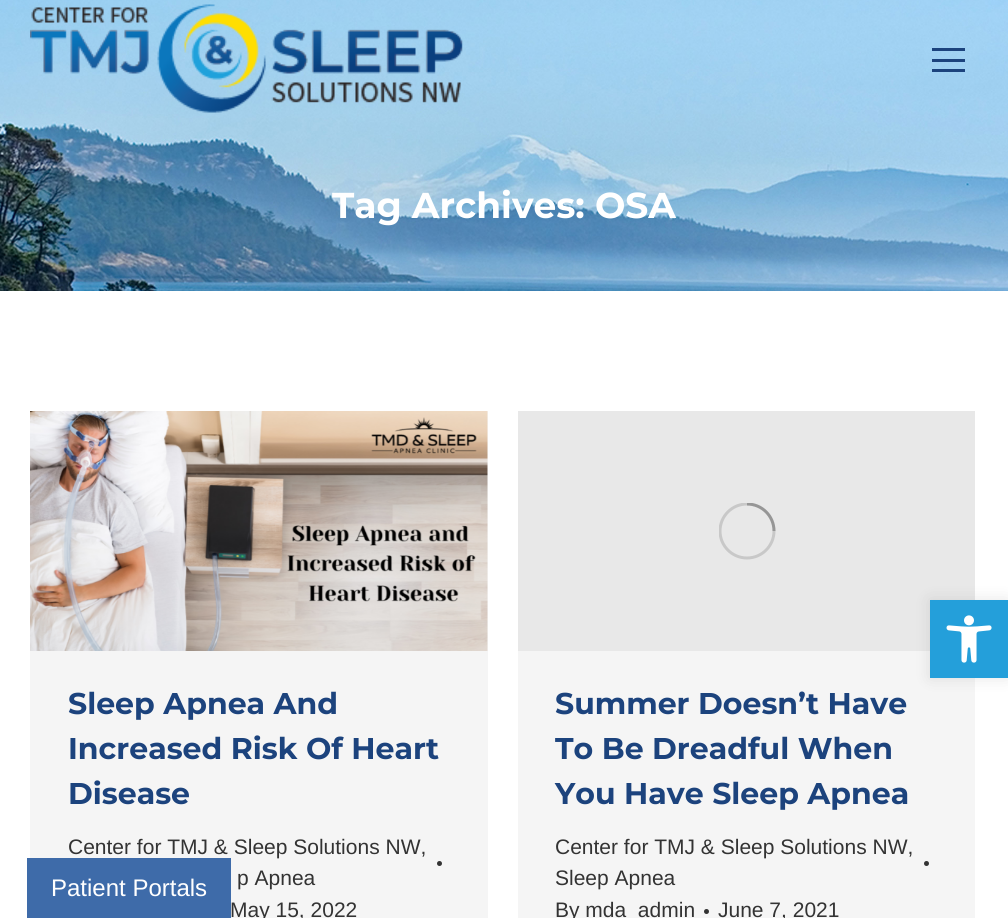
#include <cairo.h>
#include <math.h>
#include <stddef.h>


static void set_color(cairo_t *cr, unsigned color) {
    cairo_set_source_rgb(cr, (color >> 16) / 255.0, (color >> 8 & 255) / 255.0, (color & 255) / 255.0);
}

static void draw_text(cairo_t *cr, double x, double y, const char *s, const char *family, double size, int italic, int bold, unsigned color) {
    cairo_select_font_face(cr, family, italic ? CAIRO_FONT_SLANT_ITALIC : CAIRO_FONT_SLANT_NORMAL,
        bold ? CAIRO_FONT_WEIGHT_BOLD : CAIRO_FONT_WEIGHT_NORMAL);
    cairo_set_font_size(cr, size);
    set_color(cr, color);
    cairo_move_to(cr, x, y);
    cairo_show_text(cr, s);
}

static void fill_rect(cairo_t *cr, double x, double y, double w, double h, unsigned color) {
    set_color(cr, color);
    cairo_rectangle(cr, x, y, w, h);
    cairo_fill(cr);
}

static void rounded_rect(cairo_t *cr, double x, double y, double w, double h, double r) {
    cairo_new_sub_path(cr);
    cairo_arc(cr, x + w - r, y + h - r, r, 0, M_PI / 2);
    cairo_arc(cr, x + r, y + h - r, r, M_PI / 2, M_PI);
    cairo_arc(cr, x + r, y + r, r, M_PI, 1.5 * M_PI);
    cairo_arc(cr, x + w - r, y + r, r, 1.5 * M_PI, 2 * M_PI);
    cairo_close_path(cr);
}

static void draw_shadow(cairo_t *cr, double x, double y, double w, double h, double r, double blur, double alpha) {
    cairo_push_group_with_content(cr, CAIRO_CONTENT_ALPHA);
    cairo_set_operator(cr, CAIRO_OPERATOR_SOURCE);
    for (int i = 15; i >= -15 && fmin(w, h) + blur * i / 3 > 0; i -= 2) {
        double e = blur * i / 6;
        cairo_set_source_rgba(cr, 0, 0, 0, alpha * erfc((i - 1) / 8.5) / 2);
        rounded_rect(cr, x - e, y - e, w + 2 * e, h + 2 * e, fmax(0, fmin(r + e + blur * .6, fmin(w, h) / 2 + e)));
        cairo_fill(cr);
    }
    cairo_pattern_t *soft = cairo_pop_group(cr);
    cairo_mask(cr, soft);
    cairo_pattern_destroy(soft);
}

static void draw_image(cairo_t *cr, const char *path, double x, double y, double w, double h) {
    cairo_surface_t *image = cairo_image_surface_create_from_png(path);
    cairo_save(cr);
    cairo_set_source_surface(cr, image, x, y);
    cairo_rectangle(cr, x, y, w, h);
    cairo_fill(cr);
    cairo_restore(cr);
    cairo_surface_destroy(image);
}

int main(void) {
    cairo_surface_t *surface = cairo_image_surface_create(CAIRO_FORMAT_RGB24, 1008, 918);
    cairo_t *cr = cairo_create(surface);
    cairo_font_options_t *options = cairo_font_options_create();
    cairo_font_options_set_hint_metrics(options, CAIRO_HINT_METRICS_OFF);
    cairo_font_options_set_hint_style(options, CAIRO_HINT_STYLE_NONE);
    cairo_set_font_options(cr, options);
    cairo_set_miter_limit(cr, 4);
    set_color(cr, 0xFFFFFF);
    cairo_paint(cr);
    draw_image(cr, "assets/img2.png", 0, 0, 1008, 291);
    draw_image(cr, "assets/img1.png", 30, 4, 433, 109);
    fill_rect(cr, 932, 48, 33, 3, 0x1C437D);
    fill_rect(cr, 932, 59, 33, 3, 0x1C437D);
    fill_rect(cr, 932, 69, 33, 3, 0x1C437D);
    draw_text(cr, 332, 218, "Tag Archives: OSA", "Montserrat", 36, 0, 1, 0xFFFFFF);
    fill_rect(cr, 30, 411, 458, 507, 0xF5F5F5);
    draw_image(cr, "assets/img3.png", 30, 411, 458, 240);
    draw_text(cr, 68, 714, "Sleep Apnea And", "Montserrat", 30, 0, 1, 0x1C437D);
    draw_text(cr, 68, 759, "Increased Risk Of Heart", "Montserrat", 30, 0, 1, 0x1C437D);
    draw_text(cr, 68, 804, "Disease", "Montserrat", 30, 0, 1, 0x1C437D);
    draw_text(cr, 68, 854, "Center for TMJ & Sleep Solutions NW,", "Liberation Sans", 21, 0, 0, 0x333333);
    cairo_new_path(cr);
    cairo_arc(cr, 439.5, 863.5, 2.5, 0, 2 * M_PI);
    cairo_fill(cr);
    draw_text(cr, 237, 885, "p Apnea", "Liberation Sans", 21, 0, 0, 0x333333);
    draw_text(cr, 230, 917, "May 15, 2022", "Liberation Sans", 21, 0, 0, 0x333333);
    fill_rect(cr, 518, 651, 457, 267, 0xF5F5F5);
    fill_rect(cr, 518, 411, 457, 240, 0xE8E8E8);
    cairo_save(cr);
    cairo_rectangle(cr, 719, 503, 57, 57);
    cairo_clip(cr);
    cairo_arc(cr, 747, 531, 27, 0, 2 * M_PI);
    set_color(cr, 0xC8C8C8);
    cairo_set_line_width(cr, 3);
    cairo_stroke(cr);
    cairo_new_path(cr);
    cairo_move_to(cr, 774, 531);
    cairo_curve_to(cr, 774, 516, 762, 504, 747, 504);
    cairo_set_source_rgba(cr, 0, 0, 0, 0.25);
    cairo_stroke(cr);
    cairo_restore(cr);
    draw_text(cr, 555, 714, "Summer Doesn’t Have", "Montserrat", 30, 0, 1, 0x1C437D);
    draw_text(cr, 555, 759, "To Be Dreadful When", "Montserrat", 30, 0, 1, 0x1C437D);
    draw_text(cr, 555, 804, "You Have Sleep Apnea", "Montserrat", 30, 0, 1, 0x1C437D);
    draw_text(cr, 555, 854, "Center for TMJ & Sleep Solutions NW,", "Liberation Sans", 21, 0, 0, 0x333333);
    cairo_new_path(cr);
    cairo_arc(cr, 926.5, 863.5, 2.5, 0, 2 * M_PI);
    cairo_fill(cr);
    draw_text(cr, 555, 885, "Sleep Apnea", "Liberation Sans", 21, 0, 0, 0x333333);
    draw_text(cr, 555, 917, "By mda_admin", "Liberation Sans", 21, 0, 0, 0x333333);
    cairo_new_path(cr);
    cairo_arc(cr, 706.5, 911.5, 2.5, 0, 2 * M_PI);
    cairo_fill(cr);
    draw_text(cr, 718, 917, "June 7, 2021", "Liberation Sans", 21, 0, 0, 0x333333);
    set_color(cr, 0x000000);
    draw_shadow(cr, 930, 600, 78, 78, 0, 7.5, 0.1);
    fill_rect(cr, 930, 600, 78, 78, 0x249FDA);
    draw_image(cr, "assets/img4.png", 946, 615, 46, 48);
    fill_rect(cr, 27, 858, 204, 60, 0x3E6BA9);
    draw_text(cr, 51, 896, "Patient Portals", "Liberation Sans", 24, 0, 0, 0xFFFFFF);
    cairo_surface_write_to_png(surface, "output.png");
    cairo_font_options_destroy(options);
    cairo_destroy(cr);
    cairo_surface_destroy(surface);
    return 0;
}
